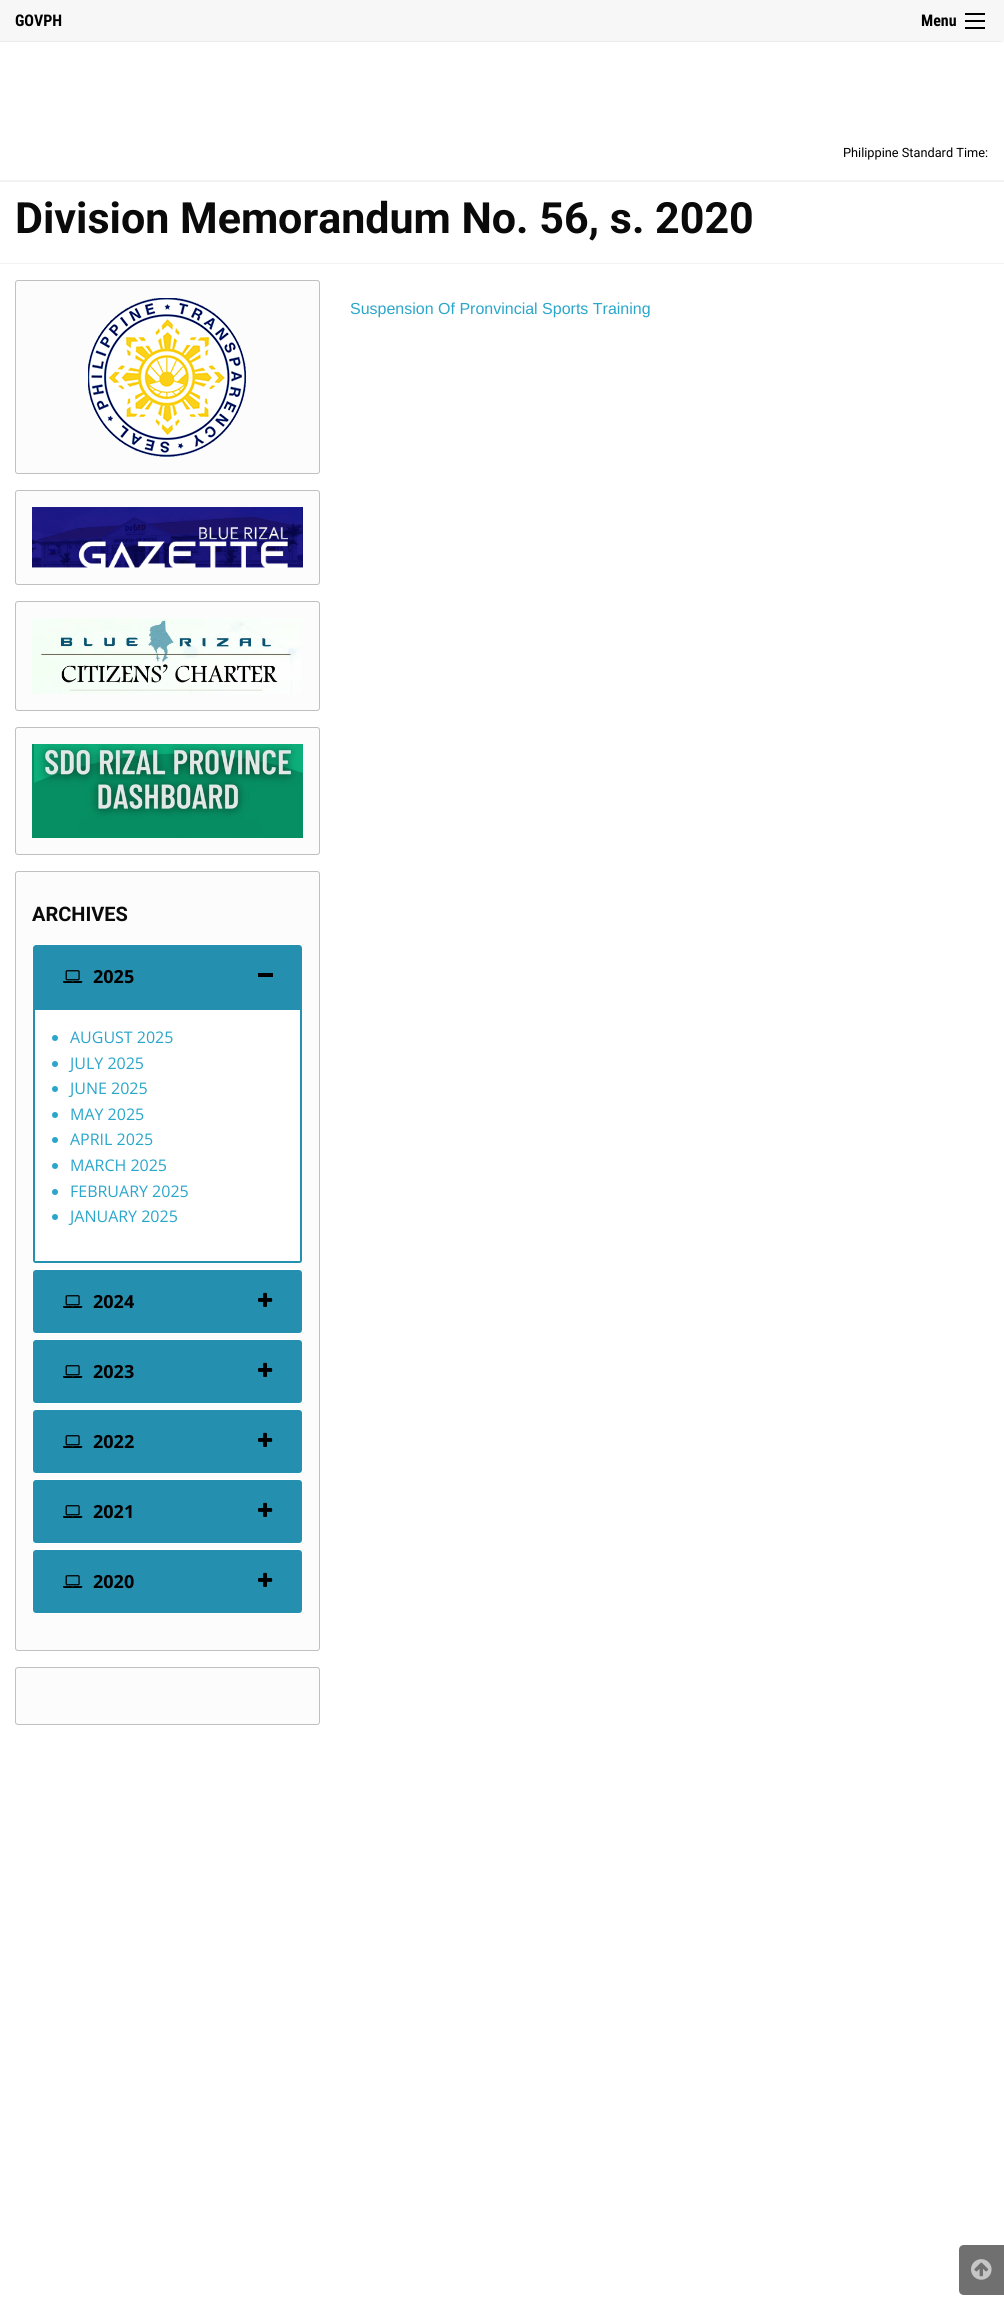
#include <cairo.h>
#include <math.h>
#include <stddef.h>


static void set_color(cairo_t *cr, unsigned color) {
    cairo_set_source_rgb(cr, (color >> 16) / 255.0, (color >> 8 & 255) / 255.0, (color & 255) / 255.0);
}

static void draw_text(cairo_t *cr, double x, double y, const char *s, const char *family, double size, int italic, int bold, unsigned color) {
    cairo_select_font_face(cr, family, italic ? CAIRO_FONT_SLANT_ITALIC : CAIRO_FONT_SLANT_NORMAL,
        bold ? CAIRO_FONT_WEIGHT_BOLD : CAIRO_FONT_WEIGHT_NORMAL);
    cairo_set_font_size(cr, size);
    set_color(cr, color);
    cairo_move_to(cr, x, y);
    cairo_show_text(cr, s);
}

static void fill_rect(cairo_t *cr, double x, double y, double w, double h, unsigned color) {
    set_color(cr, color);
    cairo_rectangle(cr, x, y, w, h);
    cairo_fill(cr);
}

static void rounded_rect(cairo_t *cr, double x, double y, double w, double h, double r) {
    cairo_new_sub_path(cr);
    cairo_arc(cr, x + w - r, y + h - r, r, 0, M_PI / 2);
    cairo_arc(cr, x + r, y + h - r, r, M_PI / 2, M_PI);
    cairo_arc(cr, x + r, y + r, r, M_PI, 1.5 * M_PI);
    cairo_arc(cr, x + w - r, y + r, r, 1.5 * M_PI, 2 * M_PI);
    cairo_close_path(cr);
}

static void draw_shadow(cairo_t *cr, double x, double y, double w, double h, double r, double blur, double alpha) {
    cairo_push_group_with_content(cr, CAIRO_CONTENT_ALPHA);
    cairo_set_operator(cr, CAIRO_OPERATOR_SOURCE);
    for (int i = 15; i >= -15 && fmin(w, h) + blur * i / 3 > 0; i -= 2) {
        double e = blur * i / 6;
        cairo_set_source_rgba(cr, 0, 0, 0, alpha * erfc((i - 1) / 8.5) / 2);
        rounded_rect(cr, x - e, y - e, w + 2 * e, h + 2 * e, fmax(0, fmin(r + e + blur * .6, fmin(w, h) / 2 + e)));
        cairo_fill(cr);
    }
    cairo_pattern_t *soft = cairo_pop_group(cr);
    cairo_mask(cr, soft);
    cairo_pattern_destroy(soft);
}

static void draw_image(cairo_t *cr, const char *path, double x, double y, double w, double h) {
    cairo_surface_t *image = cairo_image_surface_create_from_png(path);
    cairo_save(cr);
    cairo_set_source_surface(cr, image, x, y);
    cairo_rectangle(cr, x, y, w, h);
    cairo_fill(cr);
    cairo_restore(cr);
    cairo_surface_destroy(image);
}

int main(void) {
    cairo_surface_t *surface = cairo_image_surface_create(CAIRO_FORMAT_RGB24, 1004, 2319);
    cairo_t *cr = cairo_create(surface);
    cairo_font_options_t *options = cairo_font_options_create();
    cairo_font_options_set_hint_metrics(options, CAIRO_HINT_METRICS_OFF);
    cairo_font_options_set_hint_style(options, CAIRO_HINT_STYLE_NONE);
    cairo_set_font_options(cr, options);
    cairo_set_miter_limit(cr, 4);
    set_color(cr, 0xFFFFFF);
    cairo_paint(cr);
    set_color(cr, 0x000000);
    draw_shadow(cr, -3, 0, 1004, 41, 0, 2, 0.2);
    fill_rect(cr, 0, 0, 1004, 41, 0xF7F7F7);
    draw_text(cr, 15, 26, "GOVPH", "Roboto Condensed", 16, 0, 1, 0x000000);
    draw_text(cr, 921, 26, "Menu", "Roboto Condensed", 16, 0, 1, 0x000000);
    fill_rect(cr, 965, 27, 20, 2, 0x000000);
    fill_rect(cr, 965, 20, 20, 2, 0x000000);
    fill_rect(cr, 965, 13, 20, 2, 0x000000);
    fill_rect(cr, 0, 42, 1003, 2, 0xFFFFFF);
    fill_rect(cr, 0, 180, 1004, 2, 0xF2F2F2);
    draw_text(cr, 843, 157, "Philippine Standard Time:", "Roboto", 12.75, 0, 0, 0x000000);
    fill_rect(cr, 0, 263, 1004, 1, 0xF2F2F2);
    draw_text(cr, 15, 233, "Division Memorandum No. 56, s. 2020", "Roboto", 43, 0, 1, 0x0A0A0A);
    draw_text(cr, 350, 314, "Suspension Of Pronvincial Sports Training", "Liberation Sans", 16, 0, 0, 0x2BA6CB);
    set_color(cr, 0xFCFCFC);
    rounded_rect(cr, 15.5, 280.5, 304, 193, 2.5);
    cairo_fill_preserve(cr);
    set_color(cr, 0xC0C0C0);
    cairo_set_line_width(cr, 1);
    cairo_stroke(cr);
    draw_image(cr, "assets/img1.png", 88, 298, 158, 159);
    set_color(cr, 0xFCFCFC);
    rounded_rect(cr, 15.5, 490.5, 304, 94, 2.5);
    cairo_fill_preserve(cr);
    set_color(cr, 0xC0C0C0);
    cairo_stroke(cr);
    draw_image(cr, "assets/img2.png", 32, 507, 271, 61);
    set_color(cr, 0xFCFCFC);
    rounded_rect(cr, 15.5, 601.5, 304, 109, 2.5);
    cairo_fill_preserve(cr);
    set_color(cr, 0xC0C0C0);
    cairo_stroke(cr);
    draw_image(cr, "assets/img3.png", 32, 618, 269, 76);
    set_color(cr, 0xFCFCFC);
    rounded_rect(cr, 15.5, 727.5, 304, 127, 2.5);
    cairo_fill_preserve(cr);
    set_color(cr, 0xC0C0C0);
    cairo_stroke(cr);
    draw_image(cr, "assets/img4.png", 32, 744, 271, 94);
    set_color(cr, 0xFCFCFC);
    rounded_rect(cr, 15.5, 871.5, 304, 779, 2.5);
    cairo_fill_preserve(cr);
    set_color(cr, 0xC0C0C0);
    cairo_stroke(cr);
    draw_text(cr, 32, 921, "ARCHIVES", "Roboto", 20, 0, 1, 0x0A0A0A);
    set_color(cr, 0xFFFFFF);
    rounded_rect(cr, 32, 944, 271, 320, 4);
    cairo_fill(cr);
    set_color(cr, 0x258FAF);
    cairo_new_path(cr);
    cairo_move_to(cr, 36, 945);
    cairo_line_to(cr, 299, 945);
    cairo_curve_to(cr, 300.5, 945, 302, 946.5, 302, 948);
    cairo_line_to(cr, 302, 1008);
    cairo_line_to(cr, 33, 1008);
    cairo_line_to(cr, 33, 948);
    cairo_curve_to(cr, 33, 946.5, 34.5, 945, 36, 945);
    cairo_close_path(cr);
    cairo_fill(cr);
    draw_image(cr, "assets/img5.png", 63, 970, 20, 13);
    draw_text(cr, 93, 983, "2025", "Open Sans", 18, 0, 1, 0x000000);
    fill_rect(cr, 258, 973, 15, 4, 0x000000);
    set_color(cr, 0x258FAF);
    cairo_set_fill_rule(cr, CAIRO_FILL_RULE_EVEN_ODD);
    cairo_new_path(cr);
    cairo_move_to(cr, 33, 1008);
    cairo_line_to(cr, 33, 1260);
    cairo_curve_to(cr, 33, 1262, 34, 1263, 36, 1263);
    cairo_line_to(cr, 299, 1263);
    cairo_curve_to(cr, 301, 1263, 302, 1262, 302, 1260);
    cairo_line_to(cr, 302, 1008);
    cairo_close_path(cr);
    cairo_move_to(cr, 35, 1010);
    cairo_line_to(cr, 35, 1261);
    cairo_line_to(cr, 300, 1261);
    cairo_line_to(cr, 300, 1010);
    cairo_close_path(cr);
    cairo_fill(cr);
    set_color(cr, 0x2BA6CB);
    cairo_arc(cr, 55, 1038, 3, 0, 2 * M_PI);
    cairo_fill(cr);
    draw_text(cr, 70, 1043, "AUGUST 2025", "Open Sans", 16, 0, 0, 0x2BA6CB);
    cairo_new_path(cr);
    cairo_arc(cr, 55, 1064, 3, 0, 2 * M_PI);
    cairo_fill(cr);
    draw_text(cr, 70, 1069, "JULY 2025", "Open Sans", 16, 0, 0, 0x2BA6CB);
    cairo_new_path(cr);
    cairo_arc(cr, 55, 1089, 3, 0, 2 * M_PI);
    cairo_fill(cr);
    draw_text(cr, 70, 1094, "JUNE 2025", "Open Sans", 16, 0, 0, 0x2BA6CB);
    cairo_new_path(cr);
    cairo_arc(cr, 55, 1115, 3, 0, 2 * M_PI);
    cairo_fill(cr);
    draw_text(cr, 70, 1120, "MAY 2025", "Open Sans", 16, 0, 0, 0x2BA6CB);
    cairo_new_path(cr);
    cairo_arc(cr, 55, 1140, 3, 0, 2 * M_PI);
    cairo_fill(cr);
    draw_text(cr, 70, 1145, "APRIL 2025", "Open Sans", 16, 0, 0, 0x2BA6CB);
    cairo_new_path(cr);
    cairo_arc(cr, 55, 1166, 3, 0, 2 * M_PI);
    cairo_fill(cr);
    draw_text(cr, 70, 1171, "MARCH 2025", "Open Sans", 16, 0, 0, 0x2BA6CB);
    cairo_new_path(cr);
    cairo_arc(cr, 55, 1192, 3, 0, 2 * M_PI);
    cairo_fill(cr);
    draw_text(cr, 70, 1197, "FEBRUARY 2025", "Open Sans", 16, 0, 0, 0x2BA6CB);
    cairo_new_path(cr);
    cairo_arc(cr, 55, 1217, 3, 0, 2 * M_PI);
    cairo_fill(cr);
    draw_text(cr, 70, 1222, "JANUARY 2025", "Open Sans", 16, 0, 0, 0x2BA6CB);
    set_color(cr, 0xFFFFFF);
    rounded_rect(cr, 32, 1269, 271, 65, 4);
    cairo_fill(cr);
    set_color(cr, 0x258FAF);
    rounded_rect(cr, 33, 1270, 269, 63, 3);
    cairo_fill(cr);
    draw_image(cr, "assets/img5.png", 63, 1295, 20, 13);
    draw_text(cr, 93, 1308, "2024", "Open Sans", 18, 0, 1, 0x000000);
    draw_image(cr, "assets/img6.png", 258, 1292, 15, 15);
    set_color(cr, 0xFFFFFF);
    rounded_rect(cr, 32, 1339, 271, 65, 4);
    cairo_fill(cr);
    set_color(cr, 0x258FAF);
    rounded_rect(cr, 33, 1340, 269, 63, 3);
    cairo_fill(cr);
    draw_image(cr, "assets/img5.png", 63, 1365, 20, 13);
    draw_text(cr, 93, 1378, "2023", "Open Sans", 18, 0, 1, 0x000000);
    draw_image(cr, "assets/img6.png", 258, 1362, 15, 15);
    set_color(cr, 0xFFFFFF);
    rounded_rect(cr, 32, 1409, 271, 65, 4);
    cairo_fill(cr);
    set_color(cr, 0x258FAF);
    rounded_rect(cr, 33, 1410, 269, 63, 3);
    cairo_fill(cr);
    draw_image(cr, "assets/img5.png", 63, 1435, 20, 13);
    draw_text(cr, 93, 1448, "2022", "Open Sans", 18, 0, 1, 0x000000);
    draw_image(cr, "assets/img6.png", 258, 1432, 15, 15);
    set_color(cr, 0xFFFFFF);
    rounded_rect(cr, 32, 1479, 271, 65, 4);
    cairo_fill(cr);
    set_color(cr, 0x258FAF);
    rounded_rect(cr, 33, 1480, 269, 63, 3);
    cairo_fill(cr);
    draw_image(cr, "assets/img5.png", 63, 1505, 20, 13);
    draw_text(cr, 93, 1518, "2021", "Open Sans", 18, 0, 1, 0x000000);
    draw_image(cr, "assets/img6.png", 258, 1502, 15, 15);
    set_color(cr, 0xFFFFFF);
    rounded_rect(cr, 32, 1549, 271, 65, 4);
    cairo_fill(cr);
    set_color(cr, 0x258FAF);
    rounded_rect(cr, 33, 1550, 269, 63, 3);
    cairo_fill(cr);
    draw_image(cr, "assets/img5.png", 63, 1575, 20, 13);
    draw_text(cr, 93, 1588, "2020", "Open Sans", 18, 0, 1, 0x000000);
    draw_image(cr, "assets/img6.png", 258, 1572, 15, 15);
    set_color(cr, 0xFCFCFC);
    rounded_rect(cr, 15.5, 1667.5, 304, 57, 2.5);
    cairo_fill_preserve(cr);
    set_color(cr, 0xC0C0C0);
    cairo_stroke(cr);
    set_color(cr, 0x707070);
    cairo_new_path(cr);
    cairo_move_to(cr, 964, 2245);
    cairo_line_to(cr, 1004, 2245);
    cairo_line_to(cr, 1004, 2295);
    cairo_line_to(cr, 964, 2295);
    cairo_curve_to(cr, 961, 2295, 959, 2293, 959, 2290);
    cairo_line_to(cr, 959, 2250);
    cairo_curve_to(cr, 959, 2247, 961, 2245, 964, 2245);
    cairo_close_path(cr);
    cairo_fill(cr);
    draw_image(cr, "assets/img7.png", 971, 2259, 21, 21);
    cairo_surface_write_to_png(surface, "output.png");
    cairo_font_options_destroy(options);
    cairo_destroy(cr);
    cairo_surface_destroy(surface);
    return 0;
}
